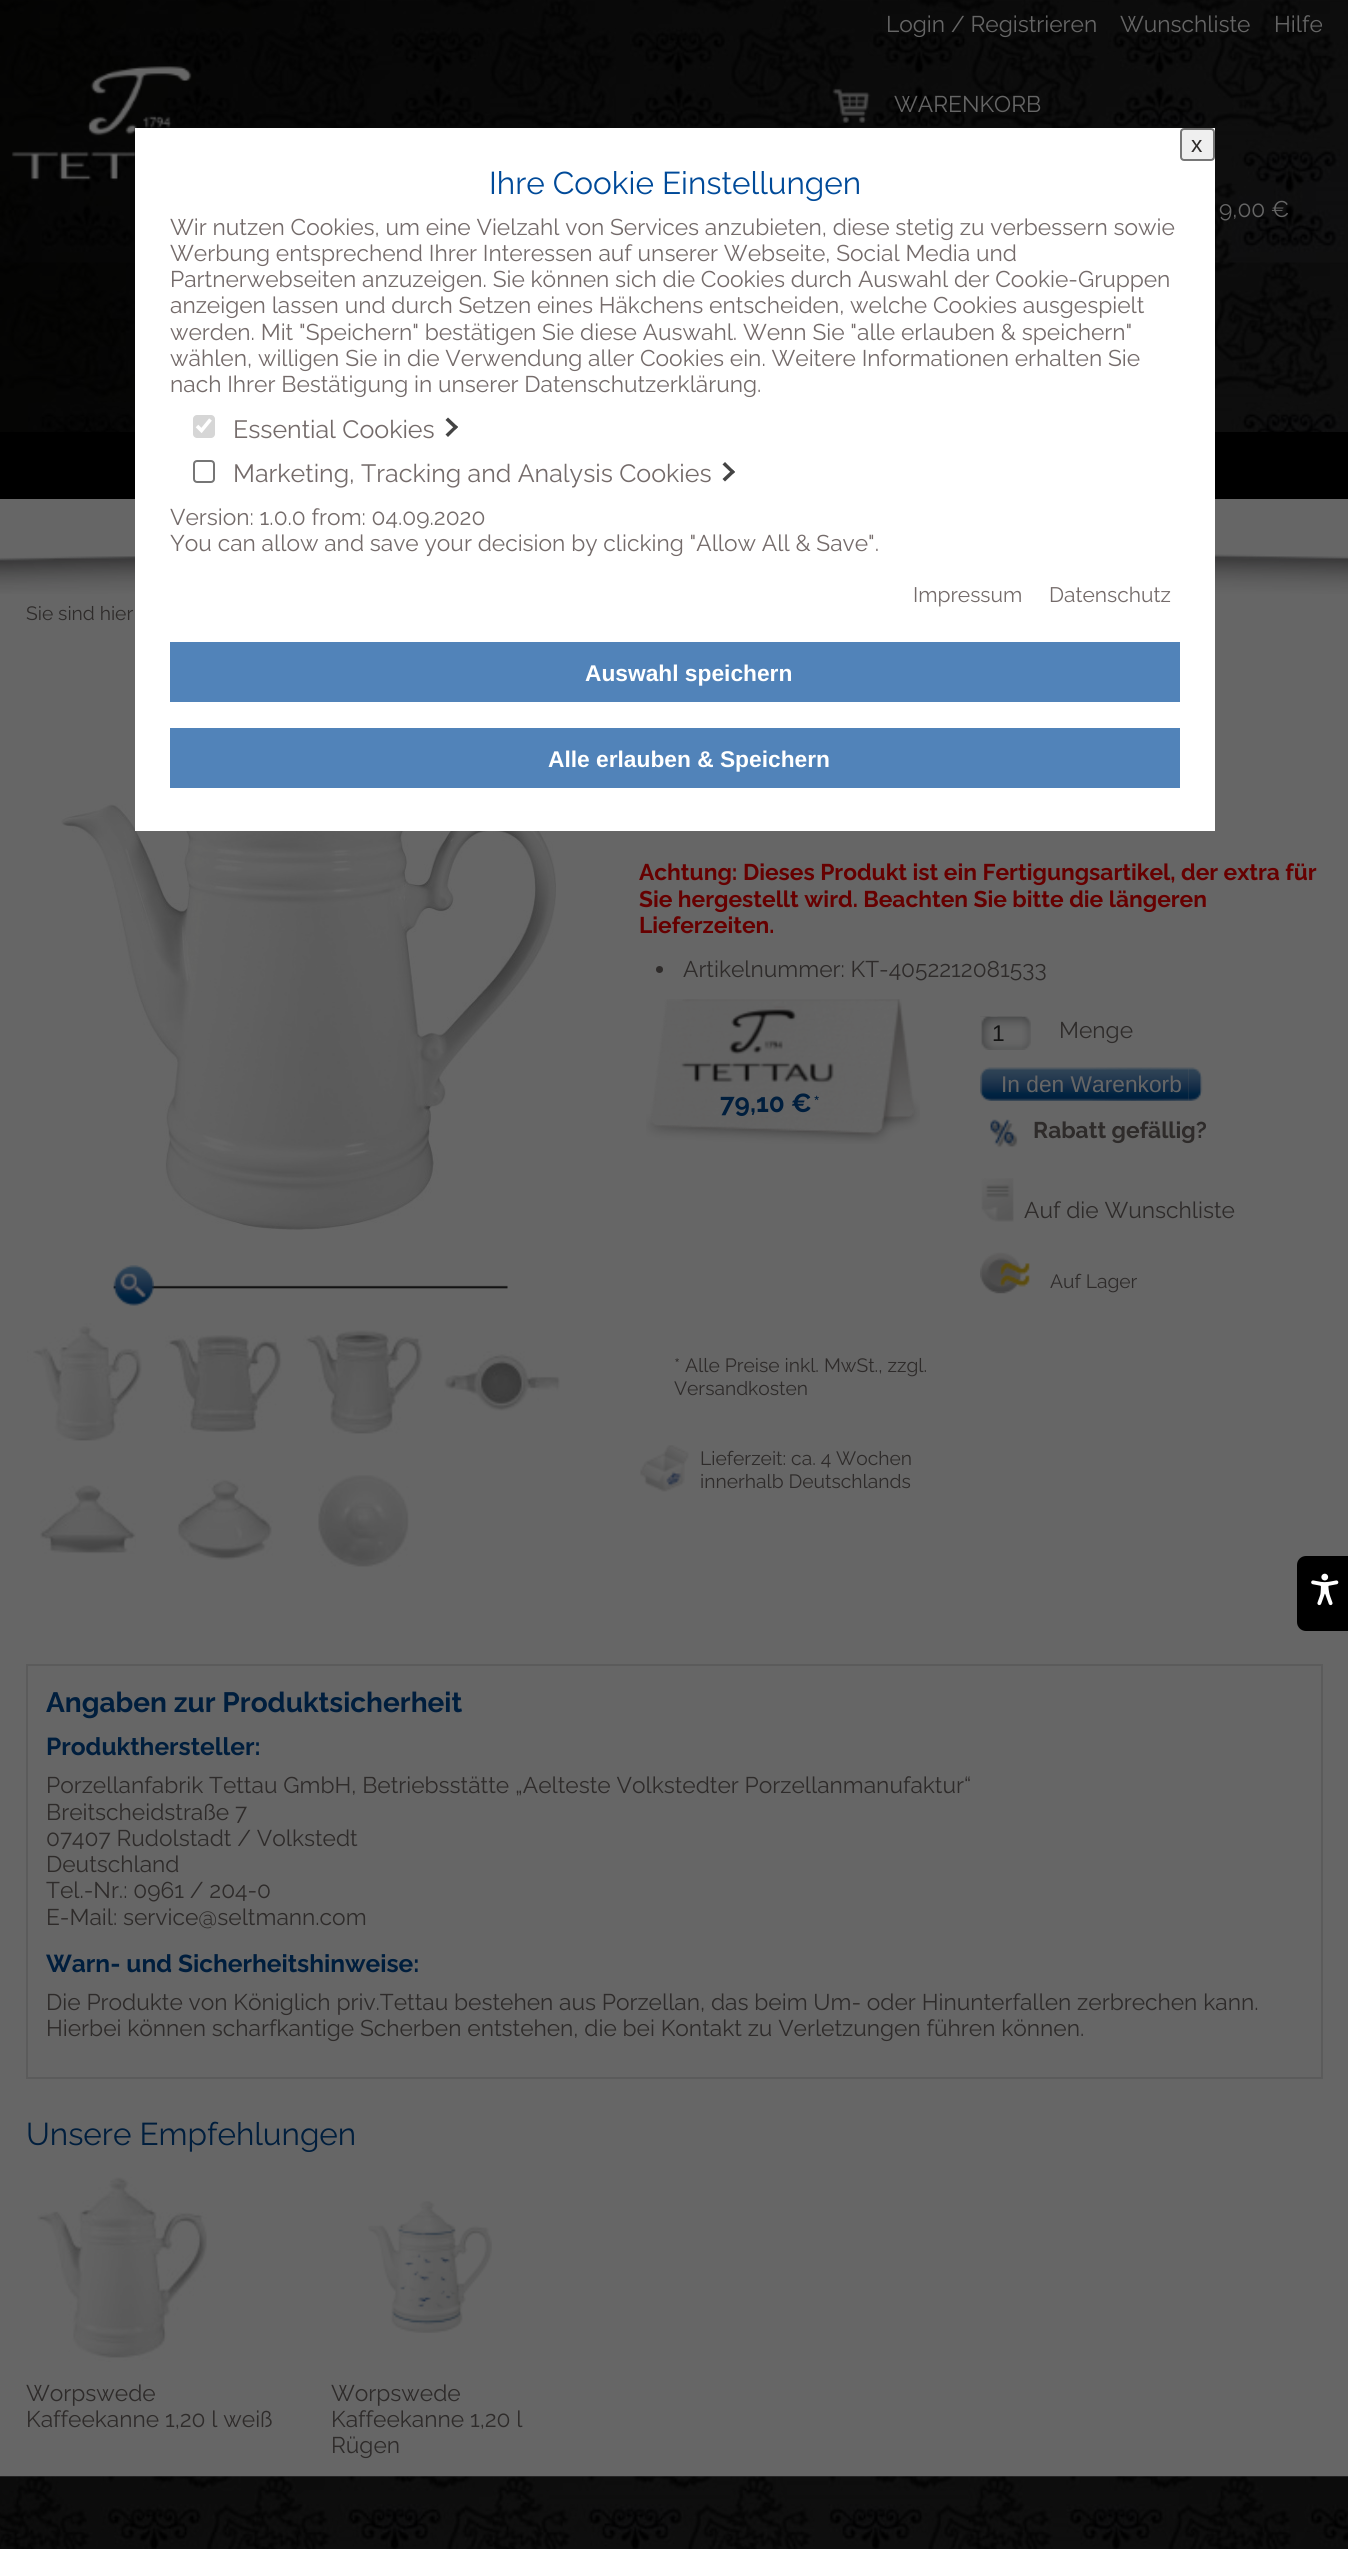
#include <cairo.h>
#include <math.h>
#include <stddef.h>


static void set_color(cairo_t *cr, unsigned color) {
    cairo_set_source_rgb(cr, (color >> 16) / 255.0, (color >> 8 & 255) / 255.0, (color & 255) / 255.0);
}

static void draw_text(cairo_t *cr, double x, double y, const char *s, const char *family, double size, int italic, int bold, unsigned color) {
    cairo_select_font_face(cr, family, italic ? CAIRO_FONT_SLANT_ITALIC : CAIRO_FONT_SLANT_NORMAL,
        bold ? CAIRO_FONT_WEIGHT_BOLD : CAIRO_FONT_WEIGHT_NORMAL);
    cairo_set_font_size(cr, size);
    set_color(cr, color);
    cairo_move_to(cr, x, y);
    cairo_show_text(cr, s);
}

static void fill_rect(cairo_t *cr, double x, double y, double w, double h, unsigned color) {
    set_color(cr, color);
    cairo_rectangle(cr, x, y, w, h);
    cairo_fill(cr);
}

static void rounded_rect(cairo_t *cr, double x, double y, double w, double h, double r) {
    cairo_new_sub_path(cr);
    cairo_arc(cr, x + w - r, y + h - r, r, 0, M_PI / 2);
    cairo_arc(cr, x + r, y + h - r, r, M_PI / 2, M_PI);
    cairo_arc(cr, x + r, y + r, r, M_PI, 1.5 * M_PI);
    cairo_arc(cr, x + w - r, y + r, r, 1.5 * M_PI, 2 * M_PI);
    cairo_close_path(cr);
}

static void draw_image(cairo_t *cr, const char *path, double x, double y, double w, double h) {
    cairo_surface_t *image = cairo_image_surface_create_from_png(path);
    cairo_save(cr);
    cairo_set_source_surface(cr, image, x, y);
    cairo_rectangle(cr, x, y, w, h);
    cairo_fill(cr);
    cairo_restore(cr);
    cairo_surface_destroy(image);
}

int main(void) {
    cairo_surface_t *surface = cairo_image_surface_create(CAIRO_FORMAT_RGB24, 1348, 2549);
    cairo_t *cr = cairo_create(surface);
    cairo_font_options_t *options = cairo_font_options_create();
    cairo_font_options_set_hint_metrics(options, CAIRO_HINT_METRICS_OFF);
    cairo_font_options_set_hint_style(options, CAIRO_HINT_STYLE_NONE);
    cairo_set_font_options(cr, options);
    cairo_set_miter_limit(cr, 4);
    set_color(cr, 0x666666);
    cairo_paint(cr);
    draw_image(cr, "assets/img1.png", 0, 0, 1348, 432);
    draw_text(cr, 886, 32, "Login / Registrieren", "Raleway", 22.75, 0, 0, 0x666666);
    draw_text(cr, 1120, 32, "Wunschliste", "Raleway", 22.75, 0, 0, 0x666666);
    draw_text(cr, 1274, 32, "Hilfe", "Raleway", 22.75, 0, 0, 0x666666);
    draw_image(cr, "assets/img2.png", 11, 66, 181, 115);
    draw_image(cr, "assets/img3.png", 832, 88, 39, 35);
    draw_text(cr, 894, 112, "WARENKORB", "Raleway", 22.75, 0, 0, 0x666666);
    draw_text(cr, 1219, 217, "9,00 €", "Raleway", 22.75, 0, 0, 0x666666);
    fill_rect(cr, 0, 432, 1348, 67, 0x000000);
    draw_image(cr, "assets/img4.png", 0, 551, 1348, 43);
    draw_image(cr, "assets/img5.png", 61, 706, 495, 524);
    fill_rect(cr, 135, 128, 1080, 703, 0xFFFFFF);
    set_color(cr, 0xEFEFEF);
    rounded_rect(cr, 1181, 129, 33, 31, 3);
    cairo_fill_preserve(cr);
    set_color(cr, 0x767676);
    cairo_stroke(cr);
    draw_text(cr, 1191, 152, "x", "Liberation Sans", 22.75, 0, 0, 0x2E2B2A);
    draw_text(cr, 489, 194, "Ihre Cookie Einstellungen", "Raleway", 31.5, 0, 0, 0x004A99);
    draw_text(cr, 170, 235, "Wir nutzen Cookies, um eine Vielzahl von Services anzubieten, diese stetig zu verbessern sowie", "Raleway", 22.75, 0, 0, 0x746B6A);
    draw_text(cr, 170, 261, "Werbung entsprechend Ihrer Interessen auf unserer Webseite, Social Media und", "Raleway", 22.75, 0, 0, 0x746B6A);
    draw_text(cr, 170, 287, "Partnerwebseiten anzuzeigen. Sie können sich die Cookies durch Auswahl der Cookie-Gruppen", "Raleway", 22.75, 0, 0, 0x746B6A);
    draw_text(cr, 170, 313, "anzeigen lassen und durch Setzen eines Häkchens entscheiden, welche Cookies ausgespielt", "Raleway", 22.75, 0, 0, 0x746B6A);
    draw_text(cr, 170, 340, "werden. Mit \"Speichern\" bestätigen Sie diese Auswahl. Wenn Sie \"alle erlauben & speichern\"", "Raleway", 22.75, 0, 0, 0x746B6A);
    draw_text(cr, 170, 366, "wählen, willigen Sie in die Verwendung aller Cookies ein. Weitere Informationen erhalten Sie", "Raleway", 22.75, 0, 0, 0x746B6A);
    draw_text(cr, 170, 392, "nach Ihrer Bestätigung in unserer Datenschutzerklärung.", "Raleway", 22.75, 0, 0, 0x746B6A);
    set_color(cr, 0xD6D6D6);
    rounded_rect(cr, 193, 415, 22, 23, 4);
    cairo_fill(cr);
    cairo_new_path(cr);
    cairo_move_to(cr, 197, 426);
    cairo_line_to(cr, 201.5, 430.5);
    cairo_line_to(cr, 210.5, 419.5);
    set_color(cr, 0xFFFFFF);
    cairo_set_line_width(cr, 3.6);
    cairo_stroke(cr);
    draw_text(cr, 233, 438, "Essential Cookies", "Raleway", 25, 0, 0, 0x746B6A);
    set_color(cr, 0x444444);
    cairo_new_path(cr);
    cairo_move_to(cr, 445.5, 420);
    cairo_line_to(cr, 448, 417.5);
    cairo_line_to(cr, 458, 427);
    cairo_line_to(cr, 455.5, 429.5);
    cairo_close_path(cr);
    cairo_fill(cr);
    cairo_new_path(cr);
    cairo_move_to(cr, 445.5, 434.5);
    cairo_line_to(cr, 455.5, 425);
    cairo_line_to(cr, 458, 427);
    cairo_line_to(cr, 448, 437);
    cairo_close_path(cr);
    cairo_fill(cr);
    rounded_rect(cr, 194, 461, 20, 21, 3);
    set_color(cr, 0x767676);
    cairo_set_line_width(cr, 2);
    cairo_stroke(cr);
    draw_text(cr, 233, 482, "Marketing, Tracking and Analysis Cookies", "Raleway", 25, 0, 0, 0x746B6A);
    set_color(cr, 0x444444);
    cairo_new_path(cr);
    cairo_move_to(cr, 722.5, 464.5);
    cairo_line_to(cr, 725, 462);
    cairo_line_to(cr, 735, 472);
    cairo_line_to(cr, 732.5, 474);
    cairo_close_path(cr);
    cairo_fill(cr);
    cairo_new_path(cr);
    cairo_move_to(cr, 722.5, 479);
    cairo_line_to(cr, 732.5, 469.5);
    cairo_line_to(cr, 735, 472);
    cairo_line_to(cr, 725, 481.5);
    cairo_close_path(cr);
    cairo_fill(cr);
    draw_text(cr, 170, 525, "Version: 1.0.0 from: 04.09.2020", "Raleway", 22.75, 0, 0, 0x746B6A);
    draw_text(cr, 170, 551, "You can allow and save your decision by clicking \"Allow All & Save\".", "Raleway", 22.75, 0, 0, 0x746B6A);
    draw_text(cr, 913, 602, "Impressum", "Raleway", 21, 0, 0, 0x746B6A);
    draw_text(cr, 1049, 602, "Datenschutz", "Raleway", 21, 0, 0, 0x746B6A);
    fill_rect(cr, 170, 642, 1010, 60, 0x5183B9);
    draw_text(cr, 585, 681, "Auswahl speichern", "Liberation Sans", 22.75, 0, 1, 0xFFFFFF);
    fill_rect(cr, 170, 728, 1010, 60, 0x5183B9);
    draw_text(cr, 548, 767, "Alle erlauben & Speichern", "Liberation Sans", 22.75, 0, 1, 0xFFFFFF);
    draw_text(cr, 26, 620, "Sie sind hier", "Raleway", 19.25, 0, 0, 0x2E2B2A);
    draw_image(cr, "assets/img6.png", 113, 1285, 395, 4);
    draw_image(cr, "assets/img7.png", 113, 1265, 41, 41);
    draw_image(cr, "assets/img8.png", 27, 1323, 115, 118);
    draw_image(cr, "assets/img9.png", 165, 1335, 117, 98);
    draw_image(cr, "assets/img10.png", 303, 1330, 120, 104);
    draw_image(cr, "assets/img11.png", 444, 1351, 116, 60);
    draw_image(cr, "assets/img12.png", 40, 1485, 96, 69);
    draw_image(cr, "assets/img13.png", 177, 1479, 96, 81);
    draw_image(cr, "assets/img14.png", 318, 1475, 91, 92);
    draw_text(cr, 639, 880, "Achtung: Dieses Produkt ist ein Fertigungsartikel, der extra für", "Raleway", 22.75, 0, 1, 0x660000);
    draw_text(cr, 639, 907, "Sie hergestellt wird. Beachten Sie bitte die längeren", "Raleway", 22.75, 0, 1, 0x660000);
    draw_text(cr, 639, 933, "Lieferzeiten.", "Raleway", 22.75, 0, 1, 0x660000);
    set_color(cr, 0x2E2B2A);
    cairo_new_path(cr);
    cairo_arc(cr, 659.5, 969.5, 3.5, 0, 2 * M_PI);
    cairo_fill(cr);
    draw_text(cr, 683, 977, "Artikelnummer: KT-4052212081533", "Raleway", 22.75, 0, 0, 0x2E2B2A);
    draw_image(cr, "assets/img15.png", 646, 999, 274, 145);
    draw_text(cr, 720, 1112, "79,10 €", "Raleway", 26, 0, 1, 0x001E3D);
    draw_text(cr, 813, 1112, "*", "Raleway", 22.75, 0, 0, 0x001E3D);
    draw_image(cr, "assets/img16.png", 980, 1016, 51, 34);
    draw_image(cr, "assets/img17.png", 980, 1016, 42, 34);
    draw_text(cr, 992, 1041, "1", "Liberation Sans", 22.75, 0, 0, 0x131313);
    draw_text(cr, 1059, 1038, "Menge", "Raleway", 22.75, 0, 0, 0x2E2B2A);
    draw_image(cr, "assets/img18.png", 1188, 1067, 15, 34);
    draw_image(cr, "assets/img19.png", 980, 1067, 209, 34);
    draw_text(cr, 1001, 1092, "In den Warenkorb", "Liberation Sans", 22.75, 0, 0, 0x666666);
    draw_image(cr, "assets/img20.png", 990, 1119, 28, 29);
    draw_text(cr, 1033, 1138, "Rabatt gefällig?", "Raleway", 22.75, 0, 1, 0x2E2B2A);
    draw_image(cr, "assets/img21.png", 981, 1178, 33, 44);
    draw_text(cr, 1024, 1218, "Auf die Wunschliste", "Raleway", 22.75, 0, 0, 0x2E2B2A);
    draw_image(cr, "assets/img22.png", 980, 1252, 50, 42);
    draw_text(cr, 1050, 1288, "Auf Lager", "Raleway", 19.25, 0, 0, 0x2E2B2A);
    draw_text(cr, 674, 1372, "* Alle Preise inkl. MwSt., zzgl.", "Raleway", 19.25, 0, 0, 0x2E2B2A);
    draw_text(cr, 674, 1395, "Versandkosten", "Raleway", 19.25, 0, 0, 0x2E2B2A);
    draw_image(cr, "assets/img23.png", 640, 1445, 49, 47);
    draw_text(cr, 700, 1465, "Lieferzeit: ca. 4 Wochen", "Raleway", 19.25, 0, 0, 0x2E2B2A);
    draw_text(cr, 700, 1488, "innerhalb Deutschlands", "Raleway", 19.25, 0, 0, 0x2E2B2A);
    cairo_rectangle(cr, 27, 1665, 1295, 413);
    set_color(cr, 0x5B5B5B);
    cairo_stroke(cr);
    draw_text(cr, 46, 1712, "Angaben zur Produktsicherheit", "Raleway", 28, 0, 1, 0x001E3D);
    draw_text(cr, 46, 1755, "Produkthersteller:", "Raleway", 24.5, 0, 1, 0x001E3D);
    draw_text(cr, 46, 1793, "Porzellanfabrik Tettau GmbH, Betriebsstätte „Aelteste Volkstedter Porzellanmanufaktur“", "Raleway", 22.75, 0, 0, 0x2E2B2A);
    draw_text(cr, 46, 1820, "Breitscheidstraße 7", "Raleway", 22.75, 0, 0, 0x2E2B2A);
    draw_text(cr, 46, 1846, "07407 Rudolstadt / Volkstedt", "Raleway", 22.75, 0, 0, 0x2E2B2A);
    draw_text(cr, 46, 1872, "Deutschland", "Raleway", 22.75, 0, 0, 0x2E2B2A);
    draw_text(cr, 46, 1898, "Tel.-Nr.: 0961 / 204-0", "Raleway", 22.75, 0, 0, 0x2E2B2A);
    draw_text(cr, 46, 1925, "E-Mail: service@seltmann.com", "Raleway", 22.75, 0, 0, 0x2E2B2A);
    draw_text(cr, 46, 1972, "Warn- und Sicherheitshinweise:", "Raleway", 24.5, 0, 1, 0x001E3D);
    draw_text(cr, 46, 2010, "Die Produkte von Königlich priv.Tettau bestehen aus Porzellan, das beim Um- oder Hinunterfallen zerbrechen kann.", "Raleway", 22.75, 0, 0, 0x2E2B2A);
    draw_text(cr, 46, 2036, "Hierbei können scharfkantige Scherben entstehen, die bei Kontakt zu Verletzungen führen können.", "Raleway", 22.75, 0, 0, 0x2E2B2A);
    draw_text(cr, 26, 2145, "Unsere Empfehlungen", "Raleway", 31.5, 0, 0, 0x001E3D);
    draw_image(cr, "assets/img24.png", 37, 2177, 170, 185);
    draw_text(cr, 26, 2401, "Worpswede", "Raleway", 22.75, 0, 0, 0x2E2B2A);
    draw_text(cr, 26, 2427, "Kaffeekanne 1,20 l weiß", "Raleway", 22.75, 0, 0, 0x2E2B2A);
    draw_image(cr, "assets/img25.png", 368, 2201, 124, 132);
    draw_text(cr, 331, 2401, "Worpswede", "Raleway", 22.75, 0, 0, 0x2E2B2A);
    draw_text(cr, 331, 2427, "Kaffeekanne 1,20 l", "Raleway", 22.75, 0, 0, 0x2E2B2A);
    draw_text(cr, 331, 2453, "Rügen", "Raleway", 22.75, 0, 0, 0x2E2B2A);
    draw_image(cr, "assets/img26.png", 0, 2476, 1348, 73);
    set_color(cr, 0x000000);
    cairo_new_path(cr);
    cairo_move_to(cr, 1306, 1556);
    cairo_line_to(cr, 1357, 1556);
    cairo_line_to(cr, 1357, 1631);
    cairo_line_to(cr, 1306, 1631);
    cairo_curve_to(cr, 1301, 1631, 1297, 1627, 1297, 1622);
    cairo_line_to(cr, 1297, 1565);
    cairo_curve_to(cr, 1297, 1560, 1301, 1556, 1306, 1556);
    cairo_close_path(cr);
    cairo_fill(cr);
    draw_image(cr, "assets/img27.png", 1311, 1573, 28, 33);
    cairo_surface_write_to_png(surface, "output.png");
    cairo_font_options_destroy(options);
    cairo_destroy(cr);
    cairo_surface_destroy(surface);
    return 0;
}
